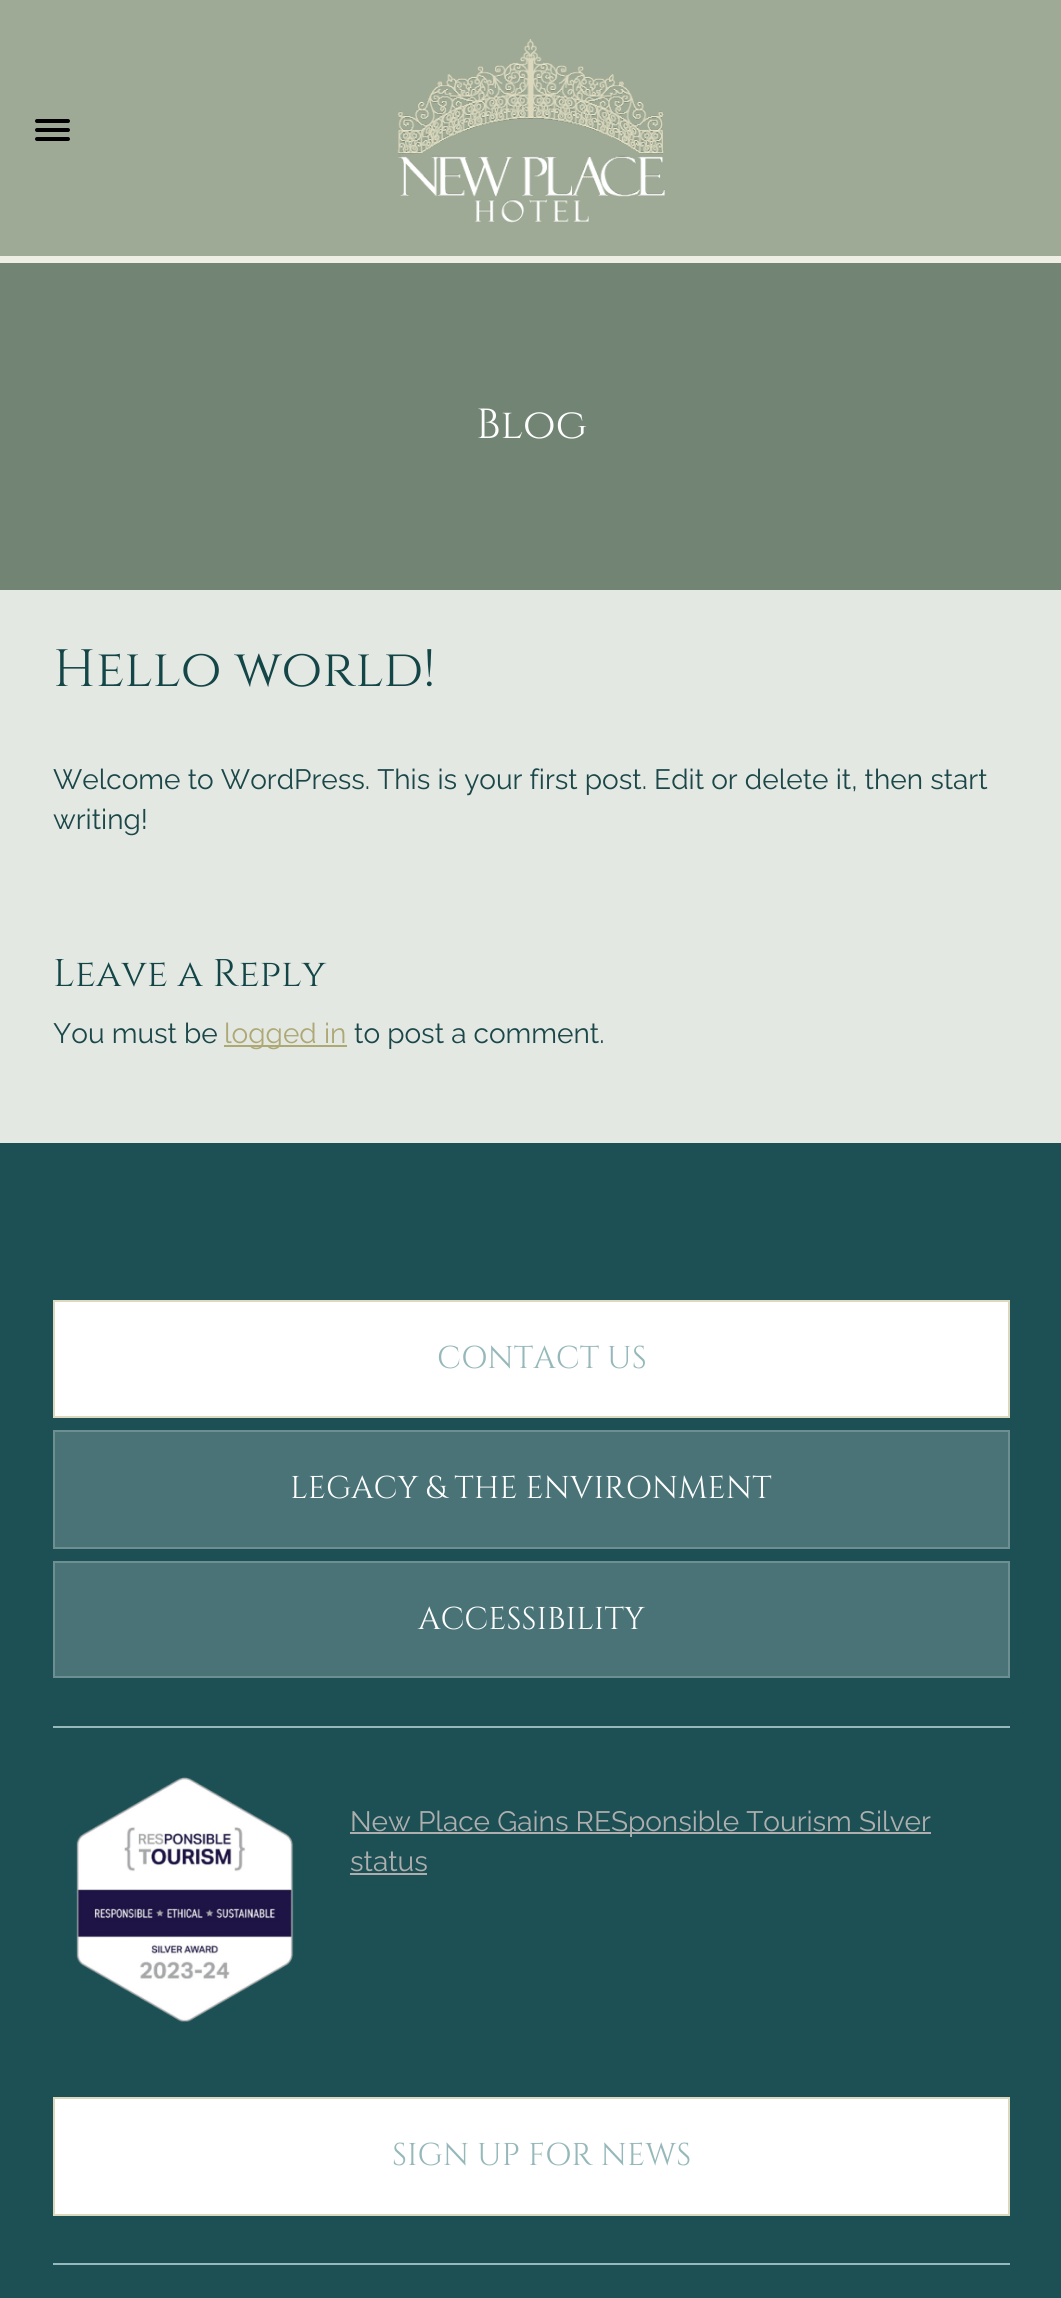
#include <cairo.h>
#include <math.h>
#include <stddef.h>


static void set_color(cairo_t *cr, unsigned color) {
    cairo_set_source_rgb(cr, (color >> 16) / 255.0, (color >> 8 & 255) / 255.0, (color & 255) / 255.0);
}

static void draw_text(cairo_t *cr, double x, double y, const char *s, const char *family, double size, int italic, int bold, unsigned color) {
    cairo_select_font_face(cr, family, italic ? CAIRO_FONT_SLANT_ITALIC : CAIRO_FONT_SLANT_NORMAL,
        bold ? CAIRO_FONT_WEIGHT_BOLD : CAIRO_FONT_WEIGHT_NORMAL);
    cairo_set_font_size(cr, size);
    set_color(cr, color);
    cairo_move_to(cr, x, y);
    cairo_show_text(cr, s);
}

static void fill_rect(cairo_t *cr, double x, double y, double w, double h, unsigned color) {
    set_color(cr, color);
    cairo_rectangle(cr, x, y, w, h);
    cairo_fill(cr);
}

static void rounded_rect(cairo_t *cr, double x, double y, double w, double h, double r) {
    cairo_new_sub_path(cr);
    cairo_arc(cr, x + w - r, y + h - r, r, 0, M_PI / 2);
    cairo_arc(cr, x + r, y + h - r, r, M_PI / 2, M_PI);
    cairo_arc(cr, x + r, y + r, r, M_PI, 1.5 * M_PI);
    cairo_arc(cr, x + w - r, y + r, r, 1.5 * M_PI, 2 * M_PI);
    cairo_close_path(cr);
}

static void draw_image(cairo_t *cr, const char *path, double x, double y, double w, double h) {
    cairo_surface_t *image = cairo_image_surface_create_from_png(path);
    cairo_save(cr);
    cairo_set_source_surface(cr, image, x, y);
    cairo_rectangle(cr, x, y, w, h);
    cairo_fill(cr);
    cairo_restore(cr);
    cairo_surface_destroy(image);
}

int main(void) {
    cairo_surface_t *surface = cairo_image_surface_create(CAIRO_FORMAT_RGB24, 1061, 2298);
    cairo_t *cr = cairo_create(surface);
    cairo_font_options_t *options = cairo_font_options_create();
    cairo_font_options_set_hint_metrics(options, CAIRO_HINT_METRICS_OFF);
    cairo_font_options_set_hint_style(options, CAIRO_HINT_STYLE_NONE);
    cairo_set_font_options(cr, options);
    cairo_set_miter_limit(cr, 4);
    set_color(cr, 0x9EAA96);
    cairo_paint(cr);
    fill_rect(cr, 0, 256, 1061, 7, 0xEFEEE5);
    set_color(cr, 0x000000);
    rounded_rect(cr, 35, 119, 35, 4, 2);
    cairo_fill(cr);
    rounded_rect(cr, 35, 128, 35, 4, 2);
    cairo_fill(cr);
    rounded_rect(cr, 35, 137, 35, 4, 2);
    cairo_fill(cr);
    draw_image(cr, "assets/img1.png", 397, 39, 268, 184);
    fill_rect(cr, 0, 263, 1061, 327, 0x728574);
    draw_text(cr, 476, 438, "Blog", "Cinzel", 42, 0, 0, 0xFFFFFF);
    fill_rect(cr, 0, 590, 1061, 553, 0xE3E8E3);
    draw_text(cr, 53, 686, "Hello world!", "Cinzel", 52.5, 0, 0, 0x144547);
    draw_text(cr, 53, 789, "Welcome to WordPress. This is your first post. Edit or delete it, then start", "Raleway Thin", 28, 0, 0, 0x1B4749);
    draw_text(cr, 53, 829, "writing!", "Raleway Thin", 28, 0, 0, 0x1B4749);
    draw_text(cr, 53, 986, "Leave a Reply", "Cinzel", 38.5, 0, 0, 0x144547);
    draw_text(cr, 53, 1043, "You must be", "Raleway Thin", 28, 0, 0, 0x1B4749);
    fill_rect(cr, 224, 1045, 123, 2, 0xAEA875);
    draw_text(cr, 224, 1043, "logged in", "Raleway Thin", 28, 0, 0, 0xAEA875);
    draw_text(cr, 354, 1043, "to post a comment.", "Raleway Thin", 28, 0, 0, 0x1B4749);
    fill_rect(cr, 0, 1143, 1061, 1155, 0x1C5055);
    set_color(cr, 0xFFFFFF);
    cairo_rectangle(cr, 54, 1301, 955, 116);
    cairo_fill_preserve(cr);
    set_color(cr, 0xDBD8BD);
    cairo_stroke(cr);
    draw_text(cr, 437, 1368, "CONTACT US", "Cinzel", 31.5, 0, 0, 0x96B8BA);
    set_color(cr, 0x497377);
    cairo_rectangle(cr, 54, 1431, 955, 117);
    cairo_fill_preserve(cr);
    set_color(cr, 0x6D8F92);
    cairo_stroke(cr);
    draw_text(cr, 290, 1498, "LEGACY & THE ENVIRONMENT", "Cinzel", 31.5, 0, 0, 0xFFFFFF);
    set_color(cr, 0x497377);
    cairo_rectangle(cr, 54, 1562, 955, 115);
    cairo_fill_preserve(cr);
    set_color(cr, 0x6D8F92);
    cairo_stroke(cr);
    draw_text(cr, 418, 1629, "ACCESSIBILITY", "Cinzel", 31.5, 0, 0, 0xFFFFFF);
    fill_rect(cr, 53, 1726, 957, 2, 0x97B9BB);
    draw_image(cr, "assets/img2.png", 76, 1777, 218, 245);
    fill_rect(cr, 350, 1832, 581, 2, 0xAEAEAE);
    draw_text(cr, 350, 1831, "New Place Gains RESponsible Tourism Silver", "Raleway Thin", 28, 0, 0, 0xAEAEAE);
    draw_text(cr, 350, 1871, "status", "Raleway Thin", 28, 0, 0, 0xAEAEAE);
    fill_rect(cr, 350, 1873, 77, 2, 0xAEAEAE);
    set_color(cr, 0xFFFFFF);
    cairo_rectangle(cr, 54, 2098, 955, 117);
    cairo_fill_preserve(cr);
    set_color(cr, 0xDBD8BD);
    cairo_stroke(cr);
    draw_text(cr, 392, 2165, "SIGN UP FOR NEWS", "Cinzel", 31.5, 0, 0, 0x96B8BA);
    fill_rect(cr, 53, 2263, 957, 2, 0x97B9BB);
    cairo_surface_write_to_png(surface, "output.png");
    cairo_font_options_destroy(options);
    cairo_destroy(cr);
    cairo_surface_destroy(surface);
    return 0;
}
